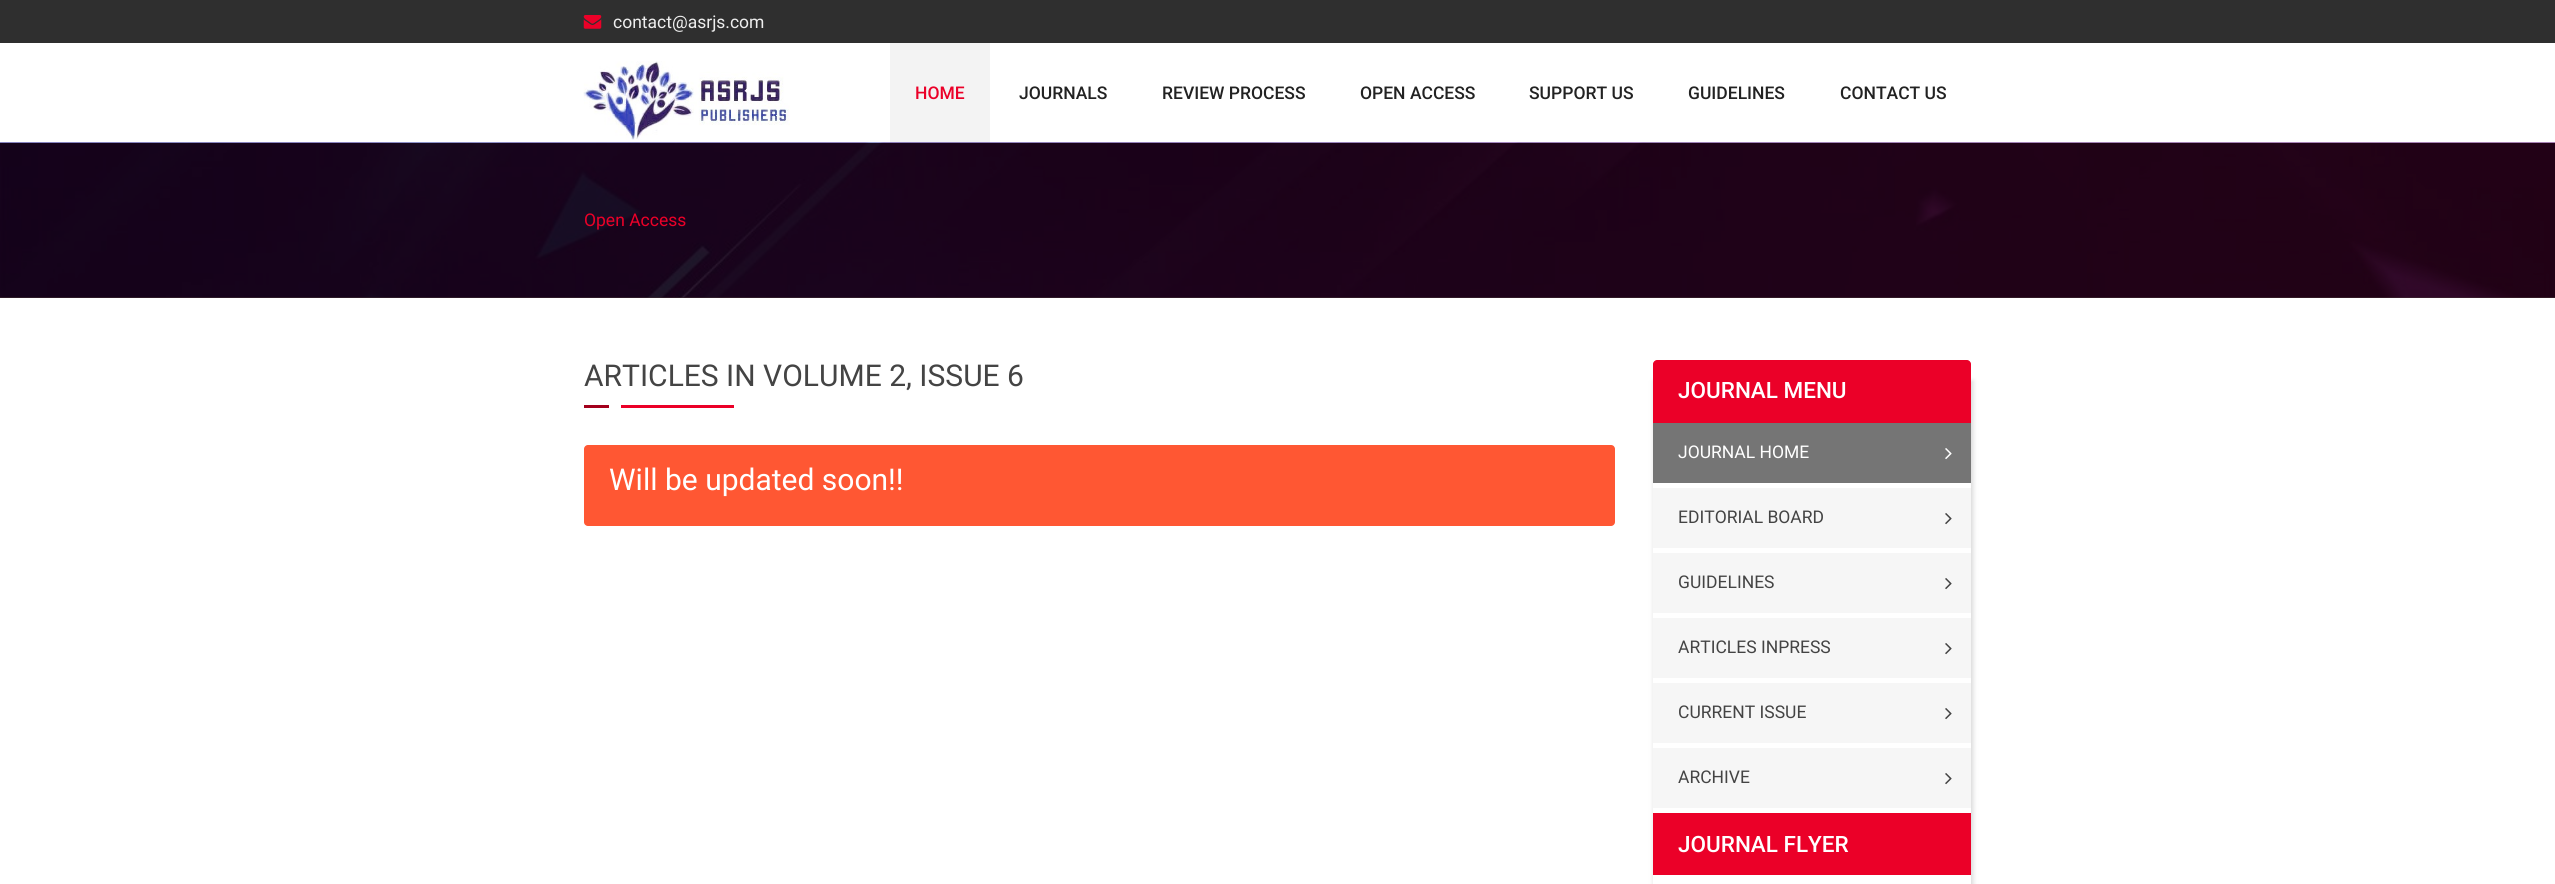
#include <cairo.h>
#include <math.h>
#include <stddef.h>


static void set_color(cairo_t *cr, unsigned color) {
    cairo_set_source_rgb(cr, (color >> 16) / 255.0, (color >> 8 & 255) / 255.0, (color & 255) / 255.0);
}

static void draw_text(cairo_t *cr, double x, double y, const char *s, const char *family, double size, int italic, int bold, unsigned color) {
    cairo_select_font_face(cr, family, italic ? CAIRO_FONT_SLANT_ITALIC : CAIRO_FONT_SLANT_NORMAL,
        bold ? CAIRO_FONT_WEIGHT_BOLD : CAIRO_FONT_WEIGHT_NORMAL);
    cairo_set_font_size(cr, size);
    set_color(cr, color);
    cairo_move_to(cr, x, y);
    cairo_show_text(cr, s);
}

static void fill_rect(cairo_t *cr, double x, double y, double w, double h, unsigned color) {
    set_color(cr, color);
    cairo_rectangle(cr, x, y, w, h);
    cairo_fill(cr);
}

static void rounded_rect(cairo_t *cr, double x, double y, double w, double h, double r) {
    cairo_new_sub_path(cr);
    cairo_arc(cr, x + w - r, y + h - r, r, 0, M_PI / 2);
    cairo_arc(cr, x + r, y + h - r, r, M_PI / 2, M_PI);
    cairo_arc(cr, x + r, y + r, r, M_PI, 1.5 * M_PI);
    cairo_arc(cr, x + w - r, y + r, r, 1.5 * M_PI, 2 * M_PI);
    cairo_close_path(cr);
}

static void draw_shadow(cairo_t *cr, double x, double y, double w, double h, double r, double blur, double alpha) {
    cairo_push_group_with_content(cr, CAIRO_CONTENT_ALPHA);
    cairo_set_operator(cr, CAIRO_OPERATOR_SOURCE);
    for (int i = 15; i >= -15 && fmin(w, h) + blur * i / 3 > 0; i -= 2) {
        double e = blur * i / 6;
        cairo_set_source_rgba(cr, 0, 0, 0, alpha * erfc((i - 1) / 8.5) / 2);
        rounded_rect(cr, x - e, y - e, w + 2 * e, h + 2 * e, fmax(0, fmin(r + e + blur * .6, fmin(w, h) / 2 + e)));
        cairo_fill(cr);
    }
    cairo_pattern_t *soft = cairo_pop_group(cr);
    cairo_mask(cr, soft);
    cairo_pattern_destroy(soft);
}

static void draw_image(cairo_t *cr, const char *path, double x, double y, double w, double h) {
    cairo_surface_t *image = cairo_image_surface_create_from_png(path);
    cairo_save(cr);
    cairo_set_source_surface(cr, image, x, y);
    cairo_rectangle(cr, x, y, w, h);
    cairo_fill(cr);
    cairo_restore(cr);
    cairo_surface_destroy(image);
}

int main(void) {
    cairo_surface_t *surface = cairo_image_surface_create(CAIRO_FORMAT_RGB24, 2555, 884);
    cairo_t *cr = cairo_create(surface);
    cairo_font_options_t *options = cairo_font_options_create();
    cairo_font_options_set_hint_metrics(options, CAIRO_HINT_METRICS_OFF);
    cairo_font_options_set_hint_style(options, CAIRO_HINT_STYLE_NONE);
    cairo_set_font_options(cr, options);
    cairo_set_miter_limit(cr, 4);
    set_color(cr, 0xFFFFFF);
    cairo_paint(cr);
    fill_rect(cr, 0, 297, 2555, 1, 0x453334);
    fill_rect(cr, 0, 0, 2555, 43, 0x2F2F2F);
    draw_image(cr, "assets/img1.png", 583, 15, 19, 14);
    draw_text(cr, 613, 28, "contact@asrjs.com", "Roboto", 17.5, 0, 0, 0xEEEEEE);
    draw_image(cr, "assets/img2.png", 583, 61, 207, 79);
    fill_rect(cr, 890, 43, 100, 100, 0xF3F3F3);
    draw_text(cr, 915, 99, "HOME", "Roboto Medium", 17.5, 0, 0, 0xEB0028);
    draw_text(cr, 1019, 99, "JOURNALS", "Roboto Medium", 17.5, 0, 0, 0x222222);
    draw_text(cr, 1162, 99, "REVIEW PROCESS", "Roboto Medium", 17.5, 0, 0, 0x222222);
    draw_text(cr, 1360, 99, "OPEN ACCESS", "Roboto Medium", 17.5, 0, 0, 0x222222);
    draw_text(cr, 1529, 99, "SUPPORT US", "Roboto Medium", 17.5, 0, 0, 0x222222);
    draw_text(cr, 1688, 99, "GUIDELINES", "Roboto Medium", 17.5, 0, 0, 0x222222);
    draw_text(cr, 1840, 99, "CONTACT US", "Roboto Medium", 17.5, 0, 0, 0x222222);
    draw_image(cr, "assets/img3.png", 0, 142, 2555, 156);
    draw_text(cr, 584, 226, "Open Access", "Roboto", 17.5, 0, 0, 0xEB0028);
    draw_text(cr, 584, 386, "ARTICLES IN VOLUME 2, ISSUE 6", "Roboto", 30, 0, 0, 0x444444);
    fill_rect(cr, 584, 405, 25, 3, 0xA3001C);
    fill_rect(cr, 621, 405, 113, 3, 0xEB0028);
    set_color(cr, 0xFF5733);
    rounded_rect(cr, 584, 445, 1031, 81, 4);
    cairo_fill(cr);
    draw_text(cr, 609, 490, "Will be updated soon!!", "Roboto", 30, 0, 0, 0xFFFFFF);
    cairo_save(cr);
    cairo_set_fill_rule(cr, CAIRO_FILL_RULE_EVEN_ODD);
    cairo_new_path(cr);
    cairo_move_to(cr, 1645, 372);
    cairo_line_to(cr, 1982, 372);
    cairo_line_to(cr, 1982, 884);
    cairo_line_to(cr, 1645, 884);
    cairo_close_path(cr);
    cairo_move_to(cr, 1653, 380);
    cairo_line_to(cr, 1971, 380);
    cairo_line_to(cr, 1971, 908);
    cairo_line_to(cr, 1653, 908);
    cairo_close_path(cr);
    cairo_clip(cr);
    set_color(cr, 0x999999);
    draw_shadow(cr, 1654, 381, 319, 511, 0, 2.5, 0.4);
    cairo_restore(cr);
    set_color(cr, 0xEB0028);
    cairo_new_path(cr);
    cairo_move_to(cr, 1657, 360);
    cairo_line_to(cr, 1967, 360);
    cairo_curve_to(cr, 1969, 360, 1971, 362, 1971, 364);
    cairo_line_to(cr, 1971, 420);
    cairo_line_to(cr, 1653, 420);
    cairo_line_to(cr, 1653, 364);
    cairo_curve_to(cr, 1653, 362, 1655, 360, 1657, 360);
    cairo_close_path(cr);
    cairo_fill(cr);
    draw_text(cr, 1678, 398, "JOURNAL MENU", "Roboto Medium", 22.5, 0, 0, 0xFFFFFF);
    fill_rect(cr, 1653, 420, 318, 455, 0xEB0028);
    fill_rect(cr, 1653, 483, 318, 330, 0xFFFFFF);
    fill_rect(cr, 1653, 423, 318, 60, 0x757575);
    draw_text(cr, 1678, 458, "JOURNAL HOME", "Roboto", 17.5, 0, 0, 0xFFFFFF);
    draw_image(cr, "assets/img4.png", 1945, 448, 7, 12);
    fill_rect(cr, 1653, 488, 318, 60, 0xF6F6F6);
    draw_text(cr, 1678, 523, "EDITORIAL BOARD", "Roboto", 17.5, 0, 0, 0x444444);
    draw_image(cr, "assets/img5.png", 1945, 513, 7, 12);
    fill_rect(cr, 1653, 553, 318, 60, 0xF6F6F6);
    draw_text(cr, 1678, 588, "GUIDELINES", "Roboto", 17.5, 0, 0, 0x444444);
    draw_image(cr, "assets/img5.png", 1945, 578, 7, 12);
    fill_rect(cr, 1653, 618, 318, 60, 0xF6F6F6);
    draw_text(cr, 1678, 653, "ARTICLES INPRESS", "Roboto", 17.5, 0, 0, 0x444444);
    draw_image(cr, "assets/img5.png", 1945, 643, 7, 12);
    fill_rect(cr, 1653, 683, 318, 60, 0xF6F6F6);
    draw_text(cr, 1678, 718, "CURRENT ISSUE", "Roboto", 17.5, 0, 0, 0x444444);
    draw_image(cr, "assets/img5.png", 1945, 708, 7, 12);
    fill_rect(cr, 1653, 748, 318, 60, 0xF6F6F6);
    draw_text(cr, 1678, 783, "ARCHIVE", "Roboto", 17.5, 0, 0, 0x444444);
    draw_image(cr, "assets/img5.png", 1945, 773, 7, 12);
    draw_text(cr, 1678, 852, "JOURNAL FLYER", "Roboto Medium", 22.5, 0, 0, 0xFFFFFF);
    cairo_surface_write_to_png(surface, "output.png");
    cairo_font_options_destroy(options);
    cairo_destroy(cr);
    cairo_surface_destroy(surface);
    return 0;
}
